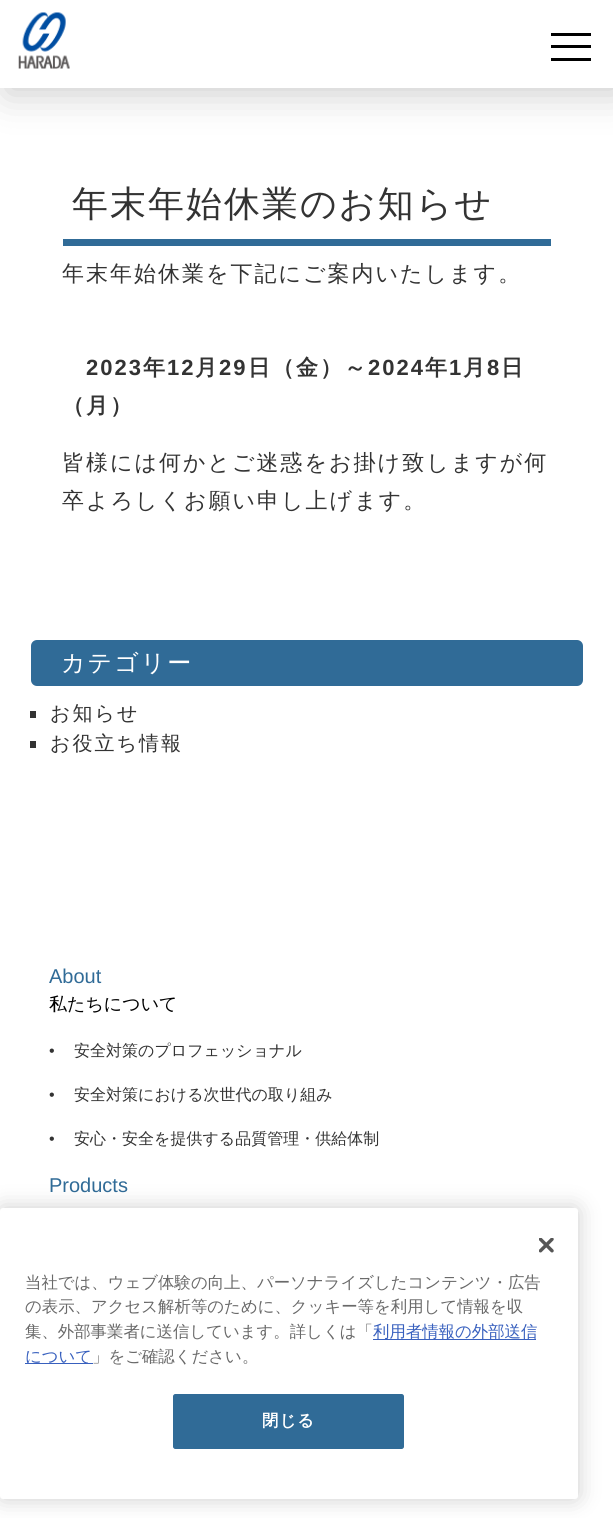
#include <cairo.h>
#include <math.h>
#include <stddef.h>


static void set_color(cairo_t *cr, unsigned color) {
    cairo_set_source_rgb(cr, (color >> 16) / 255.0, (color >> 8 & 255) / 255.0, (color & 255) / 255.0);
}

static void draw_text(cairo_t *cr, double x, double y, const char *s, const char *family, double size, int italic, int bold, unsigned color) {
    cairo_select_font_face(cr, family, italic ? CAIRO_FONT_SLANT_ITALIC : CAIRO_FONT_SLANT_NORMAL,
        bold ? CAIRO_FONT_WEIGHT_BOLD : CAIRO_FONT_WEIGHT_NORMAL);
    cairo_set_font_size(cr, size);
    set_color(cr, color);
    cairo_move_to(cr, x, y);
    cairo_show_text(cr, s);
}

static void draw_spaced(cairo_t *cr, double x, double y, const char *s, double letter, double word) {
    cairo_move_to(cr, x, y);
    while (*s) {
        char ch[5] = {0};
        int n = 0;
        do ch[n++] = *s++; while ((*s & 0xC0) == 0x80);
        cairo_show_text(cr, ch);
        cairo_rel_move_to(cr, letter + word * (*ch == ' '), 0);
    }
}

static void fill_rect(cairo_t *cr, double x, double y, double w, double h, unsigned color) {
    set_color(cr, color);
    cairo_rectangle(cr, x, y, w, h);
    cairo_fill(cr);
}

static void rounded_rect(cairo_t *cr, double x, double y, double w, double h, double r) {
    cairo_new_sub_path(cr);
    cairo_arc(cr, x + w - r, y + h - r, r, 0, M_PI / 2);
    cairo_arc(cr, x + r, y + h - r, r, M_PI / 2, M_PI);
    cairo_arc(cr, x + r, y + r, r, M_PI, 1.5 * M_PI);
    cairo_arc(cr, x + w - r, y + r, r, 1.5 * M_PI, 2 * M_PI);
    cairo_close_path(cr);
}

static void draw_shadow(cairo_t *cr, double x, double y, double w, double h, double r, double blur, double alpha) {
    cairo_push_group_with_content(cr, CAIRO_CONTENT_ALPHA);
    cairo_set_operator(cr, CAIRO_OPERATOR_SOURCE);
    for (int i = 15; i >= -15 && fmin(w, h) + blur * i / 3 > 0; i -= 2) {
        double e = blur * i / 6;
        cairo_set_source_rgba(cr, 0, 0, 0, alpha * erfc((i - 1) / 8.5) / 2);
        rounded_rect(cr, x - e, y - e, w + 2 * e, h + 2 * e, fmax(0, fmin(r + e + blur * .6, fmin(w, h) / 2 + e)));
        cairo_fill(cr);
    }
    cairo_pattern_t *soft = cairo_pop_group(cr);
    cairo_mask(cr, soft);
    cairo_pattern_destroy(soft);
}

static void draw_image(cairo_t *cr, const char *path, double x, double y, double w, double h) {
    cairo_surface_t *image = cairo_image_surface_create_from_png(path);
    cairo_save(cr);
    cairo_set_source_surface(cr, image, x, y);
    cairo_rectangle(cr, x, y, w, h);
    cairo_fill(cr);
    cairo_restore(cr);
    cairo_surface_destroy(image);
}

int main(void) {
    cairo_surface_t *surface = cairo_image_surface_create(CAIRO_FORMAT_RGB24, 613, 1518);
    cairo_t *cr = cairo_create(surface);
    cairo_font_options_t *options = cairo_font_options_create();
    cairo_font_options_set_hint_metrics(options, CAIRO_HINT_METRICS_OFF);
    cairo_font_options_set_hint_style(options, CAIRO_HINT_STYLE_NONE);
    cairo_set_font_options(cr, options);
    cairo_set_miter_limit(cr, 4);
    set_color(cr, 0xFFFFFF);
    cairo_paint(cr);
    cairo_save(cr);
    cairo_set_fill_rule(cr, CAIRO_FILL_RULE_EVEN_ODD);
    cairo_new_path(cr);
    cairo_move_to(cr, 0, 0);
    cairo_line_to(cr, 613, 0);
    cairo_line_to(cr, 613, 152);
    cairo_line_to(cr, 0, 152);
    cairo_close_path(cr);
    cairo_move_to(cr, 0, 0);
    cairo_line_to(cr, 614, 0);
    cairo_line_to(cr, 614, 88);
    cairo_line_to(cr, 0, 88);
    cairo_close_path(cr);
    cairo_clip(cr);
    set_color(cr, 0x000000);
    draw_shadow(cr, 6, 6, 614, 88, 0, 19, 0.2);
    cairo_restore(cr);
    cairo_set_source_rgba(cr, 1, 1, 1, 0.8);
    cairo_rectangle(cr, 0, 87, 613, 1);
    cairo_fill(cr);
    draw_image(cr, "assets/img1.png", 18, 12, 52, 57);
    fill_rect(cr, 551, 33, 40, 3, 0x000000);
    fill_rect(cr, 551, 45, 40, 3, 0x000000);
    fill_rect(cr, 551, 58, 40, 3, 0x000000);
    cairo_select_font_face(cr, "WenQuanYi Zen Hei Medium", CAIRO_FONT_SLANT_NORMAL, CAIRO_FONT_WEIGHT_NORMAL);
    cairo_set_font_size(cr, 36);
    set_color(cr, 0x333333);
    draw_spaced(cr, 72, 216, "年末年始休業のお知らせ", 2, 0);
    fill_rect(cr, 63, 239, 488, 7, 0x306B97);
    cairo_set_font_size(cr, 22);
    set_color(cr, 0x333333);
    draw_spaced(cr, 62, 281, "年末年始休業を下記にご案内いたします。", 2, 0);
    cairo_select_font_face(cr, "Liberation Sans", CAIRO_FONT_SLANT_NORMAL, CAIRO_FONT_WEIGHT_BOLD);
    draw_spaced(cr, 86, 375, "2023", 2, 0);
    cairo_select_font_face(cr, "WenQuanYi Zen Hei", CAIRO_FONT_SLANT_NORMAL, CAIRO_FONT_WEIGHT_BOLD);
    draw_spaced(cr, 143, 375, "年", 2, 0);
    cairo_select_font_face(cr, "Liberation Sans", CAIRO_FONT_SLANT_NORMAL, CAIRO_FONT_WEIGHT_BOLD);
    draw_spaced(cr, 167, 375, "12", 2, 0);
    cairo_select_font_face(cr, "WenQuanYi Zen Hei", CAIRO_FONT_SLANT_NORMAL, CAIRO_FONT_WEIGHT_BOLD);
    draw_spaced(cr, 195, 375, "月", 2, 0);
    cairo_select_font_face(cr, "Liberation Sans", CAIRO_FONT_SLANT_NORMAL, CAIRO_FONT_WEIGHT_BOLD);
    draw_spaced(cr, 219, 375, "29", 2, 0);
    cairo_select_font_face(cr, "WenQuanYi Zen Hei", CAIRO_FONT_SLANT_NORMAL, CAIRO_FONT_WEIGHT_BOLD);
    draw_spaced(cr, 248, 375, "日（金）～", 2, 0);
    cairo_select_font_face(cr, "Liberation Sans", CAIRO_FONT_SLANT_NORMAL, CAIRO_FONT_WEIGHT_BOLD);
    draw_spaced(cr, 368, 375, "2024", 2, 0);
    cairo_select_font_face(cr, "WenQuanYi Zen Hei", CAIRO_FONT_SLANT_NORMAL, CAIRO_FONT_WEIGHT_BOLD);
    draw_spaced(cr, 425, 375, "年", 2, 0);
    cairo_select_font_face(cr, "Liberation Sans", CAIRO_FONT_SLANT_NORMAL, CAIRO_FONT_WEIGHT_BOLD);
    draw_spaced(cr, 449, 375, "1", 2, 0);
    cairo_select_font_face(cr, "WenQuanYi Zen Hei", CAIRO_FONT_SLANT_NORMAL, CAIRO_FONT_WEIGHT_BOLD);
    draw_spaced(cr, 463, 375, "月", 2, 0);
    cairo_select_font_face(cr, "Liberation Sans", CAIRO_FONT_SLANT_NORMAL, CAIRO_FONT_WEIGHT_BOLD);
    draw_spaced(cr, 487, 375, "8", 2, 0);
    cairo_select_font_face(cr, "WenQuanYi Zen Hei", CAIRO_FONT_SLANT_NORMAL, CAIRO_FONT_WEIGHT_BOLD);
    draw_spaced(cr, 501, 375, "日", 2, 0);
    draw_spaced(cr, 62, 413, "（月）", 2, 0);
    cairo_select_font_face(cr, "WenQuanYi Zen Hei Medium", CAIRO_FONT_SLANT_NORMAL, CAIRO_FONT_WEIGHT_NORMAL);
    draw_spaced(cr, 62, 470, "皆様には何かとご迷惑をお掛け致しますが何", 2, 0);
    draw_spaced(cr, 62, 508, "卒よろしくお願い申し上げます。", 2, 0);
    set_color(cr, 0x306B97);
    rounded_rect(cr, 31, 640, 552, 46, 6);
    cairo_fill(cr);
    cairo_set_font_size(cr, 24);
    set_color(cr, 0xFFFFFF);
    draw_spaced(cr, 61, 671, "カテゴリー", 2, 0);
    fill_rect(cr, 30, 711, 6, 7, 0x333333);
    cairo_set_font_size(cr, 20);
    draw_spaced(cr, 50, 720, "お知らせ", 2, 0);
    fill_rect(cr, 30, 741, 6, 7, 0x333333);
    draw_spaced(cr, 50, 750, "お役立ち情報", 2, 0);
    draw_text(cr, 49, 983, "About", "Liberation Sans", 20, 0, 0, 0x306B97);
    draw_text(cr, 49, 1010, "私たちについて", "WenQuanYi Zen Hei Medium", 18, 0, 0, 0x000000);
    draw_text(cr, 49, 1056, "•", "Liberation Sans", 16, 0, 0, 0x333333);
    draw_text(cr, 74, 1056, "安全対策のプロフェッショナル", "WenQuanYi Zen Hei Medium", 16, 0, 0, 0x333333);
    draw_text(cr, 49, 1100, "•", "Liberation Sans", 16, 0, 0, 0x333333);
    draw_text(cr, 74, 1100, "安全対策における次世代の取り組み", "WenQuanYi Zen Hei Medium", 16, 0, 0, 0x333333);
    draw_text(cr, 49, 1144, "•", "Liberation Sans", 16, 0, 0, 0x333333);
    draw_text(cr, 74, 1144, "安心・安全を提供する品質管理・供給体制", "WenQuanYi Zen Hei Medium", 16, 0, 0, 0x333333);
    draw_text(cr, 49, 1192, "Products", "Liberation Sans", 20, 0, 0, 0x306B97);
    set_color(cr, 0x000000);
    draw_shadow(cr, 0, 1208, 578, 291, 3, 11, 0.2);
    set_color(cr, 0xFFFFFF);
    rounded_rect(cr, 0, 1208, 578, 291, 3);
    cairo_fill(cr);
    draw_image(cr, "assets/img2.png", 539, 1238, 15, 15);
    draw_text(cr, 25, 1288, "当社では、ウェブ体験の向上、パーソナライズしたコンテンツ・広告", "WenQuanYi Zen Hei Medium", 16.4, 0, 0, 0x696969);
    draw_text(cr, 25, 1312, "の表示、アクセス解析等のために、クッキー等を利用して情報を収", "WenQuanYi Zen Hei Medium", 16.4, 0, 0, 0x696969);
    draw_text(cr, 25, 1337, "集、外部事業者に送信しています。詳しくは「", "WenQuanYi Zen Hei Medium", 16.4, 0, 0, 0x696969);
    fill_rect(cr, 373, 1339, 163, 1, 0x3860BE);
    draw_text(cr, 373, 1337, "利用者情報の外部送信", "WenQuanYi Zen Hei Medium", 16.4, 0, 0, 0x3860BE);
    fill_rect(cr, 25, 1363, 68, 1, 0x3860BE);
    draw_text(cr, 25, 1362, "について", "WenQuanYi Zen Hei Medium", 16.4, 0, 0, 0x3860BE);
    draw_text(cr, 92, 1362, "」をご確認ください。", "WenQuanYi Zen Hei Medium", 16.4, 0, 0, 0x696969);
    set_color(cr, 0x306B97);
    rounded_rect(cr, 173.5, 1394.5, 230, 54, 2);
    cairo_fill_preserve(cr);
    cairo_set_line_width(cr, 1);
    cairo_stroke(cr);
    cairo_select_font_face(cr, "WenQuanYi Zen Hei", CAIRO_FONT_SLANT_NORMAL, CAIRO_FONT_WEIGHT_BOLD);
    set_color(cr, 0xFFFFFF);
    draw_spaced(cr, 262, 1426, "閉じる", 1, 0);
    cairo_surface_write_to_png(surface, "output.png");
    cairo_font_options_destroy(options);
    cairo_destroy(cr);
    cairo_surface_destroy(surface);
    return 0;
}
